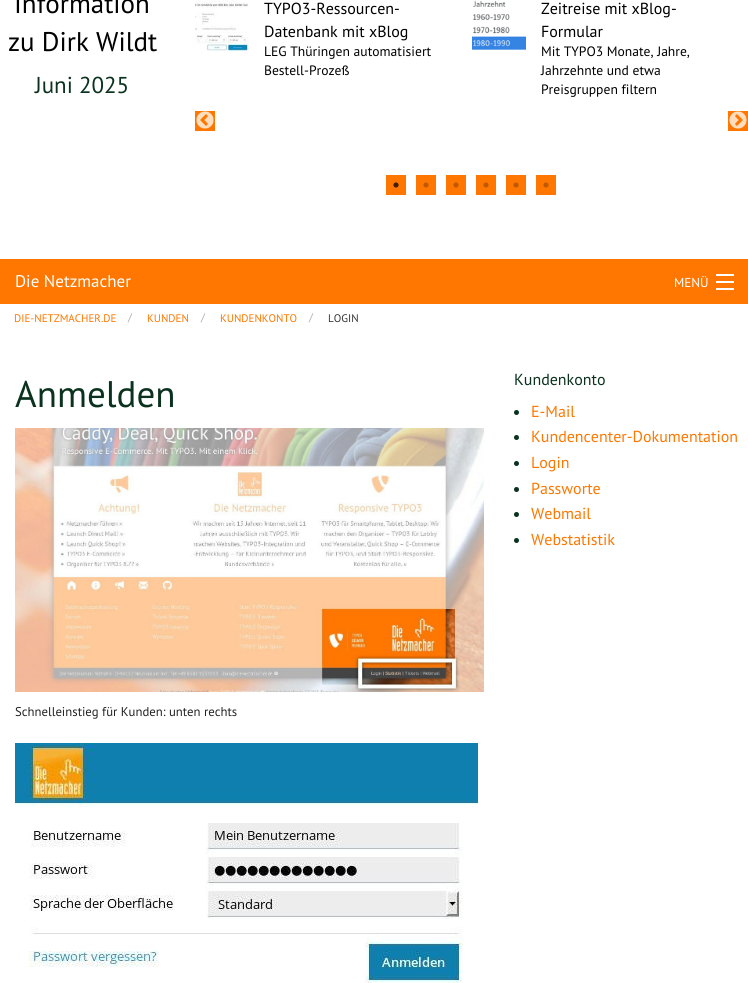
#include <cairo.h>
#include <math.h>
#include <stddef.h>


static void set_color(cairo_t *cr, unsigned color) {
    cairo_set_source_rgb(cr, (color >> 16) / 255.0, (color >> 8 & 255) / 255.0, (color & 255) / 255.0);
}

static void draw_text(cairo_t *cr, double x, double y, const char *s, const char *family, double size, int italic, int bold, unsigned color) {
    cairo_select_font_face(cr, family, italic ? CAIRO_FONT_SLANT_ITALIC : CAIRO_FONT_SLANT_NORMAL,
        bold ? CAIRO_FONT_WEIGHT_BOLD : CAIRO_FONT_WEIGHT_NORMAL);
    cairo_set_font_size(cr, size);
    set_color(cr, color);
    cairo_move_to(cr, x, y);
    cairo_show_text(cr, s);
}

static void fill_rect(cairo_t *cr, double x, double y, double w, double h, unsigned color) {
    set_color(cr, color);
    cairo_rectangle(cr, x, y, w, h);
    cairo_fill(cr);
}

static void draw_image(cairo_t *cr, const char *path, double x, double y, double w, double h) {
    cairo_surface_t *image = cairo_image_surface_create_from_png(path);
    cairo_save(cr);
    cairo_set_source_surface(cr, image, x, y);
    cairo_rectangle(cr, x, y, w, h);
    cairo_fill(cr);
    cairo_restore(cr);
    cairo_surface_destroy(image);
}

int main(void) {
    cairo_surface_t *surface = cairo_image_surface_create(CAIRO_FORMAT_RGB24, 748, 983);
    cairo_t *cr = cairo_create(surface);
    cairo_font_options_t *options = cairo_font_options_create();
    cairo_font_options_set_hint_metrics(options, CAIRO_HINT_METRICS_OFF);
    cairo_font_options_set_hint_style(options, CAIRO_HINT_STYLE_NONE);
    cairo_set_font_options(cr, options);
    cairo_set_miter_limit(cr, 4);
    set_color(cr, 0xFFFFFF);
    cairo_paint(cr);
    draw_text(cr, 14, 13, "Information", "PT Sans", 27, 0, 0, 0x000000);
    draw_text(cr, 8, 51, "zu Dirk Wildt", "PT Sans", 27, 0, 0, 0x000000);
    draw_text(cr, 35, 93, "Juni 2025", "PT Sans", 23, 0, 0, 0x0A321E);
    draw_image(cr, "assets/img1.png", 195, 0, 54, 51);
    draw_text(cr, 264, 14, "TYPO3-Ressourcen-", "PT Sans", 16, 0, 0, 0x000000);
    draw_text(cr, 264, 37, "Datenbank mit xBlog", "PT Sans", 16, 0, 0, 0x000000);
    draw_text(cr, 264, 56, "LEG Thüringen automatisiert", "PT Sans", 13.6, 0, 0, 0x000000);
    draw_text(cr, 264, 75, "Bestell-Prozeß", "PT Sans", 13.6, 0, 0, 0x000000);
    draw_image(cr, "assets/img2.png", 472, 1, 54, 49);
    draw_text(cr, 541, 14, "Zeitreise mit xBlog-", "PT Sans", 16, 0, 0, 0x000000);
    draw_text(cr, 541, 37, "Formular", "PT Sans", 16, 0, 0, 0x000000);
    draw_text(cr, 541, 56, "Mit TYPO3 Monate, Jahre,", "PT Sans", 13.6, 0, 0, 0x000000);
    draw_text(cr, 541, 75, "Jahrzehnte und etwa", "PT Sans", 13.6, 0, 0, 0x000000);
    draw_text(cr, 541, 94, "Preisgruppen filtern", "PT Sans", 13.6, 0, 0, 0x000000);
    fill_rect(cr, 195, 111, 20, 20, 0xFF7700);
    draw_image(cr, "assets/img3.png", 196, 111, 18, 18);
    fill_rect(cr, 728, 111, 20, 20, 0xFF7700);
    draw_image(cr, "assets/img4.png", 729, 111, 18, 18);
    fill_rect(cr, 386, 175, 20, 20, 0xFF7700);
    draw_image(cr, "assets/img5.png", 393, 182, 6, 6);
    fill_rect(cr, 416, 175, 20, 20, 0xFF7700);
    draw_image(cr, "assets/img6.png", 423, 182, 6, 6);
    fill_rect(cr, 446, 175, 20, 20, 0xFF7700);
    draw_image(cr, "assets/img6.png", 453, 182, 6, 6);
    fill_rect(cr, 476, 175, 20, 20, 0xFF7700);
    draw_image(cr, "assets/img6.png", 483, 182, 6, 6);
    fill_rect(cr, 506, 175, 20, 20, 0xFF7700);
    draw_image(cr, "assets/img6.png", 513, 182, 6, 6);
    fill_rect(cr, 536, 175, 20, 20, 0xFF7700);
    draw_image(cr, "assets/img6.png", 543, 182, 6, 6);
    fill_rect(cr, 0, 259, 748, 45, 0xFF7700);
    draw_text(cr, 15, 287, "Die Netzmacher", "PT Sans", 17, 0, 0, 0xFFFFFF);
    draw_text(cr, 674, 287, "MENÜ", "PT Sans", 13, 0, 0, 0xFFFFFF);
    fill_rect(cr, 716, 288, 18, 2, 0xFFFFFF);
    fill_rect(cr, 716, 281, 18, 2, 0xFFFFFF);
    fill_rect(cr, 716, 274, 18, 2, 0xFFFFFF);
    draw_text(cr, 14, 322, "DIE-NETZMACHER.DE", "PT Sans", 11, 0, 0, 0xFF7700);
    draw_text(cr, 128, 321, "/", "PT Sans", 11, 0, 0, 0xAAAAAA);
    draw_text(cr, 147, 322, "KUNDEN", "PT Sans", 11, 0, 0, 0xFF7700);
    draw_text(cr, 201, 321, "/", "PT Sans", 11, 0, 0, 0xAAAAAA);
    draw_text(cr, 220, 322, "KUNDENKONTO", "PT Sans", 11, 0, 0, 0xFF7700);
    draw_text(cr, 309, 321, "/", "PT Sans", 11, 0, 0, 0xAAAAAA);
    draw_text(cr, 328, 322, "LOGIN", "PT Sans", 11, 0, 0, 0x333333);
    draw_text(cr, 15, 407, "Anmelden", "PT Sans", 37, 0, 0, 0x0A321E);
    draw_image(cr, "assets/img7.png", 15, 428, 469, 264);
    draw_text(cr, 15, 716, "Schnelleinstieg für Kunden: unten rechts", "PT Sans", 12.75, 0, 0, 0x222222);
    draw_image(cr, "assets/img8.png", 15, 743, 463, 240);
    draw_text(cr, 514, 385, "Kundenkonto", "PT Sans", 16, 0, 0, 0x0A321E);
    cairo_new_path(cr);
    cairo_arc(cr, 516.5, 412.5, 2.5, 0, 2 * M_PI);
    cairo_fill(cr);
    draw_text(cr, 531, 417, "E-Mail", "PT Sans", 16, 0, 0, 0xFF7700);
    set_color(cr, 0x0A321E);
    cairo_new_path(cr);
    cairo_arc(cr, 516.5, 437.5, 2.5, 0, 2 * M_PI);
    cairo_fill(cr);
    draw_text(cr, 531, 442, "Kundencenter-Dokumentation", "PT Sans", 16, 0, 0, 0xFF7700);
    set_color(cr, 0x0A321E);
    cairo_new_path(cr);
    cairo_arc(cr, 516.5, 463.5, 2.5, 0, 2 * M_PI);
    cairo_fill(cr);
    draw_text(cr, 531, 468, "Login", "PT Sans", 16, 0, 0, 0xFF7700);
    set_color(cr, 0x0A321E);
    cairo_new_path(cr);
    cairo_arc(cr, 516.5, 489.5, 2.5, 0, 2 * M_PI);
    cairo_fill(cr);
    draw_text(cr, 531, 494, "Passworte", "PT Sans", 16, 0, 0, 0xFF7700);
    set_color(cr, 0x0A321E);
    cairo_new_path(cr);
    cairo_arc(cr, 516.5, 514.5, 2.5, 0, 2 * M_PI);
    cairo_fill(cr);
    draw_text(cr, 531, 519, "Webmail", "PT Sans", 16, 0, 0, 0xFF7700);
    set_color(cr, 0x0A321E);
    cairo_new_path(cr);
    cairo_arc(cr, 516.5, 540.5, 2.5, 0, 2 * M_PI);
    cairo_fill(cr);
    draw_text(cr, 531, 545, "Webstatistik", "PT Sans", 16, 0, 0, 0xFF7700);
    cairo_surface_write_to_png(surface, "output.png");
    cairo_font_options_destroy(options);
    cairo_destroy(cr);
    cairo_surface_destroy(surface);
    return 0;
}
